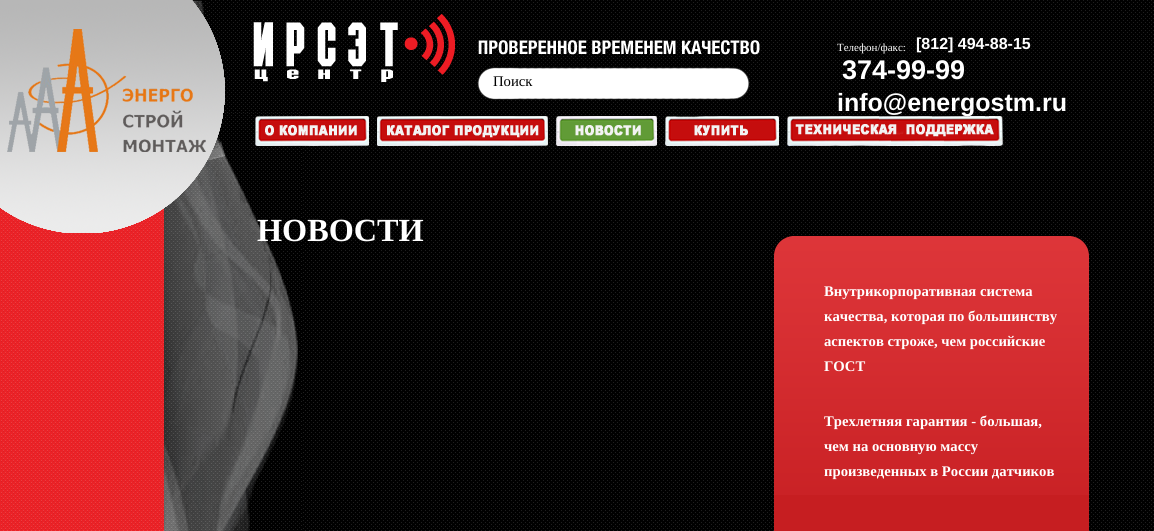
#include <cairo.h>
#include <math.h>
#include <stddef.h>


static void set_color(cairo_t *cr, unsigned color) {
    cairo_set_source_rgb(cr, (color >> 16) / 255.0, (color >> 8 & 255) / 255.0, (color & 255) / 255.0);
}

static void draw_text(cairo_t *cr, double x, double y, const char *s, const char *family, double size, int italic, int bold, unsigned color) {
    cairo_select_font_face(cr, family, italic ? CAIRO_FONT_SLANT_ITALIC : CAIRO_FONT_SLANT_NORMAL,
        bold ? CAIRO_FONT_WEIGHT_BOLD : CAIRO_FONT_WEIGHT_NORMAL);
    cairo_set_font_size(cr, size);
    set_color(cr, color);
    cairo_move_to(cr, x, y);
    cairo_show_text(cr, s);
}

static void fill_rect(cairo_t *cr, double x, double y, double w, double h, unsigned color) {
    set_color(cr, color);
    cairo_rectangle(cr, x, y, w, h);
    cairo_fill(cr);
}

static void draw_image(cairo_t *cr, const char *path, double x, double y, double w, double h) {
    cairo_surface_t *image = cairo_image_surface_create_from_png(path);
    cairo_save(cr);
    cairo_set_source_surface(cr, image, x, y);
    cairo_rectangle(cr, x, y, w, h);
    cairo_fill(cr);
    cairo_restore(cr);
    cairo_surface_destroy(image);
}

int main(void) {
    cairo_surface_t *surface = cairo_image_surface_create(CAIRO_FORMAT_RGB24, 1154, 531);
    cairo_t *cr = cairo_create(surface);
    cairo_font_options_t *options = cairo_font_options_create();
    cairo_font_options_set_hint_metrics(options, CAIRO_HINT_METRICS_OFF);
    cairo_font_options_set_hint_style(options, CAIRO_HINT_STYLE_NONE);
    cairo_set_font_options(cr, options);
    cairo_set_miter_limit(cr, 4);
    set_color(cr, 0xFFFFFF);
    cairo_paint(cr);
    draw_image(cr, "assets/img1.png", 0, 208, 164, 323);
    draw_image(cr, "assets/img3.png", 209, 0, 945, 531);
    draw_image(cr, "assets/img4.png", 164, 0, 138, 531);
    draw_image(cr, "assets/img2.png", 0, 0, 225, 233);
    draw_image(cr, "assets/img5.png", 253, 14, 202, 68);
    draw_image(cr, "assets/img6.png", 478, 40, 282, 15);
    draw_text(cr, 837, 51, "Телефон/факс:", "Liberation Serif", 11, 0, 0, 0xFFFFFF);
    draw_text(cr, 916, 49, "[812] 494-88-15", "Liberation Sans", 16, 0, 1, 0xFFFFFF);
    draw_text(cr, 842, 79, "374-99-99", "Liberation Sans", 27, 0, 1, 0xFFFFFF);
    draw_text(cr, 837, 111, "info@energostm.ru", "Liberation Sans", 25, 0, 1, 0xFFFFFF);
    draw_image(cr, "assets/img7.png", 477, 67, 273, 33);
    draw_text(cr, 493, 86, "Поиск", "Liberation Serif", 14.7, 0, 0, 0x000000);
    draw_image(cr, "assets/img8.png", 255, 116, 114, 30);
    draw_image(cr, "assets/img9.png", 377, 116, 171, 30);
    draw_image(cr, "assets/img10.png", 556, 116, 101, 30);
    draw_image(cr, "assets/img11.png", 665, 116, 114, 30);
    draw_image(cr, "assets/img12.png", 787, 116, 217, 30);
    draw_text(cr, 257, 241, "НОВОСТИ", "Liberation Serif", 32.25, 0, 1, 0xFFFFFF);
    draw_image(cr, "assets/img13.png", 774, 236, 315, 23);
    fill_rect(cr, 774, 495, 315, 36, 0xC61E21);
    draw_image(cr, "assets/img14.png", 774, 259, 315, 236);
    draw_text(cr, 824, 296, "Внутрикорпоративная система", "Liberation Serif", 14.7, 0, 1, 0xFFFFFF);
    draw_text(cr, 824, 321, "качества, которая по большинству", "Liberation Serif", 14.7, 0, 1, 0xFFFFFF);
    draw_text(cr, 824, 346, "аспектов строже, чем российские", "Liberation Serif", 14.7, 0, 1, 0xFFFFFF);
    draw_text(cr, 824, 371, "ГОСТ", "Liberation Serif", 14.7, 0, 1, 0xFFFFFF);
    draw_text(cr, 824, 426, "Трехлетняя гарантия - большая,", "Liberation Serif", 14.7, 0, 1, 0xFFFFFF);
    draw_text(cr, 824, 451, "чем на основную массу", "Liberation Serif", 14.7, 0, 1, 0xFFFFFF);
    draw_text(cr, 824, 476, "произведенных в России датчиков", "Liberation Serif", 14.7, 0, 1, 0xFFFFFF);
    cairo_surface_write_to_png(surface, "output.png");
    cairo_font_options_destroy(options);
    cairo_destroy(cr);
    cairo_surface_destroy(surface);
    return 0;
}
